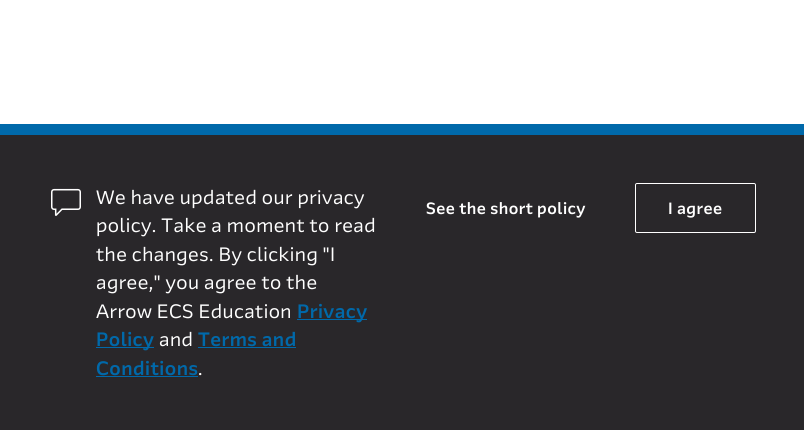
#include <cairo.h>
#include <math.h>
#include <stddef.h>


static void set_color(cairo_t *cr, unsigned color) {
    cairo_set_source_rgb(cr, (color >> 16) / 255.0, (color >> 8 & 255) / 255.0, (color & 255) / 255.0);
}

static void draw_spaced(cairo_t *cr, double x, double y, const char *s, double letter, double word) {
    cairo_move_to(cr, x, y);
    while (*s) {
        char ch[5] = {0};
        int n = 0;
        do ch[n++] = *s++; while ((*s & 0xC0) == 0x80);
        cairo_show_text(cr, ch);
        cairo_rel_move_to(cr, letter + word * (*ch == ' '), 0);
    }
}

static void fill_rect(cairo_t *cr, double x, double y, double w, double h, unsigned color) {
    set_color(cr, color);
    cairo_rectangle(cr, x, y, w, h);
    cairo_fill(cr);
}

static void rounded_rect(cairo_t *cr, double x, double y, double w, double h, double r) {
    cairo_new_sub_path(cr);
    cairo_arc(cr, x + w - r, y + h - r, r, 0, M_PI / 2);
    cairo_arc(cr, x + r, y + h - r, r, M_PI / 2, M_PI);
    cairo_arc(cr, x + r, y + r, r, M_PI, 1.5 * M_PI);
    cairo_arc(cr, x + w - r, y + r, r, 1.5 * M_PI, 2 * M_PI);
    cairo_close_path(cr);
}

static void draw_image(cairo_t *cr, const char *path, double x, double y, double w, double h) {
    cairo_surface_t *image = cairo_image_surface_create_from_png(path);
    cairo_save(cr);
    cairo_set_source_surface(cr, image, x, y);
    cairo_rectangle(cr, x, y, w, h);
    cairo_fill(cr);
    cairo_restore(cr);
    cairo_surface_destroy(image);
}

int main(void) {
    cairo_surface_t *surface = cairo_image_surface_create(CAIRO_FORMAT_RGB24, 804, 430);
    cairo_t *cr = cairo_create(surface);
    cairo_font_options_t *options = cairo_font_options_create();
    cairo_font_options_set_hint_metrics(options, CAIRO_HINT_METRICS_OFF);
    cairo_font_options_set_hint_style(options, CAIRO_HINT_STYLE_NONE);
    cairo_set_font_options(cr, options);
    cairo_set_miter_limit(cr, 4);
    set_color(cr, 0xFFFFFF);
    cairo_paint(cr);
    fill_rect(cr, 0, 124, 804, 11, 0x0069AA);
    fill_rect(cr, 0, 135, 804, 295, 0x29272A);
    draw_image(cr, "assets/img1.png", 51, 188, 30, 28);
    cairo_select_font_face(cr, "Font", CAIRO_FONT_SLANT_NORMAL, CAIRO_FONT_WEIGHT_NORMAL);
    cairo_set_font_size(cr, 19);
    set_color(cr, 0xFFFFFF);
    draw_spaced(cr, 96, 204, "We have updated our privacy", 0.5, 0);
    draw_spaced(cr, 96, 232, "policy. Take a moment to read", 0.5, 0);
    draw_spaced(cr, 96, 261, "the changes. By clicking \"I", 0.5, 0);
    draw_spaced(cr, 96, 289, "agree,\" you agree to the", 0.5, 0);
    draw_spaced(cr, 96, 318, "Arrow ECS Education", 0.5, 0);
    fill_rect(cr, 297, 319, 70, 1, 0x0069AA);
    cairo_select_font_face(cr, "Font Medium", CAIRO_FONT_SLANT_NORMAL, CAIRO_FONT_WEIGHT_NORMAL);
    draw_spaced(cr, 297, 318, "Privacy", 0.5, 0);
    fill_rect(cr, 96, 347, 58, 1, 0x0069AA);
    draw_spaced(cr, 96, 346, "Policy", 0.5, 0);
    cairo_select_font_face(cr, "Font", CAIRO_FONT_SLANT_NORMAL, CAIRO_FONT_WEIGHT_NORMAL);
    set_color(cr, 0xFFFFFF);
    draw_spaced(cr, 159, 346, "and", 0.5, 0);
    cairo_select_font_face(cr, "Font Medium", CAIRO_FONT_SLANT_NORMAL, CAIRO_FONT_WEIGHT_NORMAL);
    set_color(cr, 0x0069AA);
    draw_spaced(cr, 198, 346, "Terms and", 0.5, 0);
    fill_rect(cr, 198, 347, 98, 1, 0x0069AA);
    draw_spaced(cr, 96, 375, "Conditions", 0.5, 0);
    cairo_select_font_face(cr, "Font", CAIRO_FONT_SLANT_NORMAL, CAIRO_FONT_WEIGHT_NORMAL);
    set_color(cr, 0xFFFFFF);
    draw_spaced(cr, 198, 375, ".", 0.5, 0);
    fill_rect(cr, 96, 376, 102, 1, 0x0069AA);
    cairo_select_font_face(cr, "Font Medium", CAIRO_FONT_SLANT_NORMAL, CAIRO_FONT_WEIGHT_NORMAL);
    cairo_set_font_size(cr, 16);
    set_color(cr, 0xFFFFFF);
    draw_spaced(cr, 426, 214, "See the short policy", 0.5, 0);
    rounded_rect(cr, 635.5, 183.5, 120, 49, 1.5);
    cairo_set_line_width(cr, 1);
    cairo_stroke(cr);
    draw_spaced(cr, 668, 214, "I agree", 0.5, 0);
    cairo_surface_write_to_png(surface, "output.png");
    cairo_font_options_destroy(options);
    cairo_destroy(cr);
    cairo_surface_destroy(surface);
    return 0;
}
